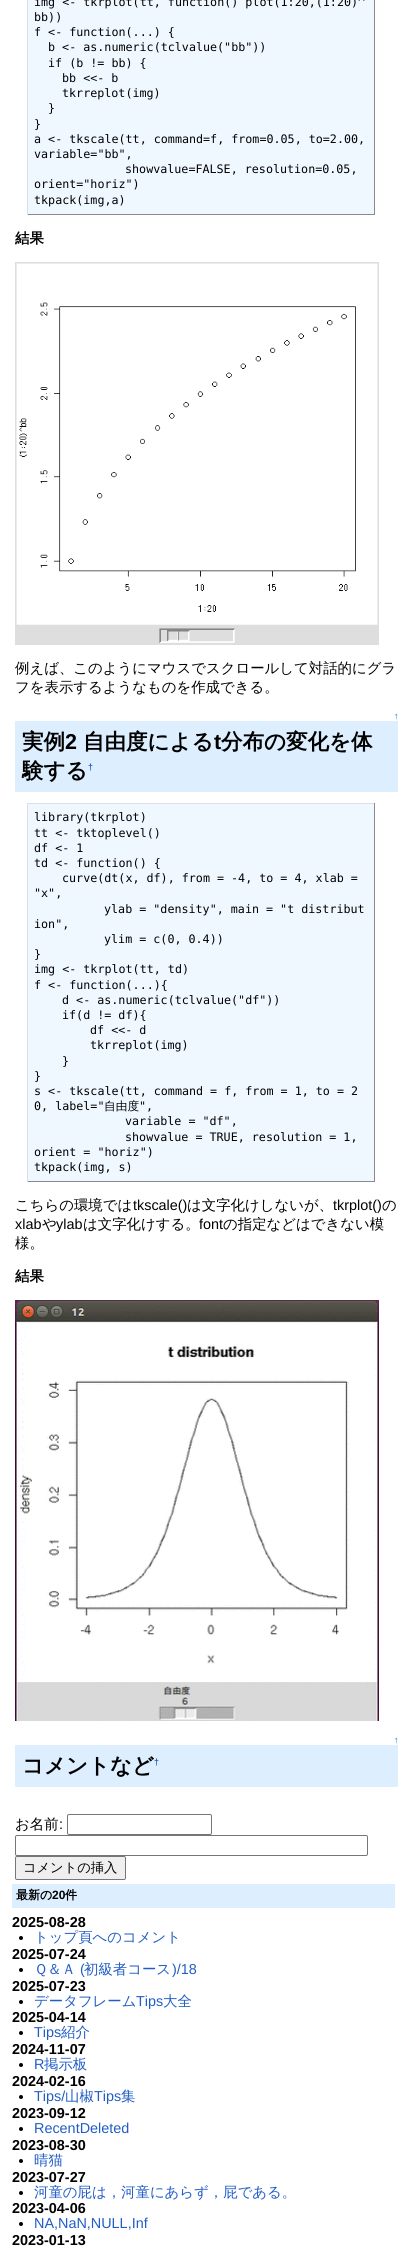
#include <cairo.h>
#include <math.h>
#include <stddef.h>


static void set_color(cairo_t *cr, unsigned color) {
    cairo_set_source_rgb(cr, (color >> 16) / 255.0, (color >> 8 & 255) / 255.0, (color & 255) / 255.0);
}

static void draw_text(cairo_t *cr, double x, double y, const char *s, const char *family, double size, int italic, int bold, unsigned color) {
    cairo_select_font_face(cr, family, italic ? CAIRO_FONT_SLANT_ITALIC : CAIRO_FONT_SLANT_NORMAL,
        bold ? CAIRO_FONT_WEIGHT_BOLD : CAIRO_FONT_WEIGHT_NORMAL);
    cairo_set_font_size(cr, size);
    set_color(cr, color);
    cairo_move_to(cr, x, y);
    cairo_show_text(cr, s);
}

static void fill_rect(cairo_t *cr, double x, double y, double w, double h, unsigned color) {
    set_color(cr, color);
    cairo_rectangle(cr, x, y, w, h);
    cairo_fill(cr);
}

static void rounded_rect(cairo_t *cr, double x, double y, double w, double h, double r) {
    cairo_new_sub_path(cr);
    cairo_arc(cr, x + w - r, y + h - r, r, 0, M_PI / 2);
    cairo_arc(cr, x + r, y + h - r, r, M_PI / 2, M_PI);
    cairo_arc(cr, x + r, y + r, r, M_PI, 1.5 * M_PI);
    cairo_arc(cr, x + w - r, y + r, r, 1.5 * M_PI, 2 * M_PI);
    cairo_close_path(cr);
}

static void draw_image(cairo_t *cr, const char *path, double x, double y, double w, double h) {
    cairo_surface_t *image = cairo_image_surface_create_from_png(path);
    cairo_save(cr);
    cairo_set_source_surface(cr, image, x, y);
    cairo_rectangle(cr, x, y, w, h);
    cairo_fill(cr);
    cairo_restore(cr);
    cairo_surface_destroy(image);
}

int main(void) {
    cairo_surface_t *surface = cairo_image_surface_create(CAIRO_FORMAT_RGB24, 407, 2251);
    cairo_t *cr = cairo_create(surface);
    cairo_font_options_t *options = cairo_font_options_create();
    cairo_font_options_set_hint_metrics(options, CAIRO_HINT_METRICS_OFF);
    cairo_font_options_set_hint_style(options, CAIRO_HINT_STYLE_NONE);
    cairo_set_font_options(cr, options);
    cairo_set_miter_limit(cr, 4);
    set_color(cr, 0xFFFFFF);
    cairo_paint(cr);
    fill_rect(cr, 28, 0, 346, 214, 0xF0F8FF);
    fill_rect(cr, 374, 0, 1, 215, 0x888899);
    fill_rect(cr, 27, 214, 348, 1, 0x888899);
    fill_rect(cr, 27, 0, 1, 215, 0xDDDDEE);
    draw_text(cr, 34, 6, "img <- tkrplot(tt, function() plot(1:20,(1:20)^", "DejaVu Sans Mono", 11.7, 0, 0, 0x000000);
    draw_text(cr, 34, 21, "bb))", "DejaVu Sans Mono", 11.7, 0, 0, 0x000000);
    draw_text(cr, 34, 36, "f <- function(...) {", "DejaVu Sans Mono", 11.7, 0, 0, 0x000000);
    draw_text(cr, 48, 51, "b <- as.numeric(tclvalue(\"bb\"))", "DejaVu Sans Mono", 11.7, 0, 0, 0x000000);
    draw_text(cr, 48, 67, "if (b != bb) {", "DejaVu Sans Mono", 11.7, 0, 0, 0x000000);
    draw_text(cr, 62, 82, "bb <<- b", "DejaVu Sans Mono", 11.7, 0, 0, 0x000000);
    draw_text(cr, 62, 97, "tkrreplot(img)", "DejaVu Sans Mono", 11.7, 0, 0, 0x000000);
    draw_text(cr, 48, 112, "}", "DejaVu Sans Mono", 11.7, 0, 0, 0x000000);
    draw_text(cr, 34, 128, "}", "DejaVu Sans Mono", 11.7, 0, 0, 0x000000);
    draw_text(cr, 34, 143, "a <- tkscale(tt, command=f, from=0.05, to=2.00,", "DejaVu Sans Mono", 11.7, 0, 0, 0x000000);
    draw_text(cr, 34, 158, "variable=\"bb\",", "DejaVu Sans Mono", 11.7, 0, 0, 0x000000);
    draw_text(cr, 125, 173, "showvalue=FALSE, resolution=0.05,", "DejaVu Sans Mono", 11.7, 0, 0, 0x000000);
    draw_text(cr, 34, 188, "orient=\"horiz\")", "DejaVu Sans Mono", 11.7, 0, 0, 0x000000);
    draw_text(cr, 34, 204, "tkpack(img,a)", "DejaVu Sans Mono", 11.7, 0, 0, 0x000000);
    draw_text(cr, 15, 243, "結果", "WenQuanYi Zen Hei", 14.4, 0, 1, 0x000000);
    draw_image(cr, "assets/img1.png", 15, 262, 364, 383);
    draw_text(cr, 15, 673, "例えば、このようにマウスでスクロールして対話的にグラ", "WenQuanYi Zen Hei Medium", 14.4, 0, 0, 0x000000);
    draw_text(cr, 15, 692, "フを表示するようなものを作成できる。", "WenQuanYi Zen Hei Medium", 14.4, 0, 0, 0x000000);
    draw_text(cr, 394, 719, "↑", "Liberation Sans", 9, 0, 0, 0x215DC6);
    fill_rect(cr, 15, 721, 383, 71, 0xDDEEFF);
    draw_text(cr, 22, 749, "実例", "WenQuanYi Zen Hei", 21.5, 0, 1, 0x000000);
    draw_text(cr, 65, 749, "2", "Liberation Sans", 21.5, 0, 1, 0x000000);
    draw_text(cr, 83, 749, "自由度による", "WenQuanYi Zen Hei", 21.5, 0, 1, 0x000000);
    draw_text(cr, 214, 749, "t", "Liberation Sans", 21.5, 0, 1, 0x000000);
    draw_text(cr, 221, 749, "分布の変化を体", "WenQuanYi Zen Hei", 21.5, 0, 1, 0x000000);
    draw_text(cr, 22, 778, "験する", "WenQuanYi Zen Hei", 21.5, 0, 1, 0x000000);
    draw_text(cr, 88, 770, "†", "Liberation Sans", 9, 0, 1, 0x215DC6);
    fill_rect(cr, 28, 804, 346, 377, 0xF0F8FF);
    fill_rect(cr, 27, 803, 348, 1, 0xDDDDEE);
    fill_rect(cr, 374, 803, 1, 379, 0x888899);
    fill_rect(cr, 27, 1181, 348, 1, 0x888899);
    fill_rect(cr, 27, 803, 1, 379, 0xDDDDEE);
    draw_text(cr, 34, 821, "library(tkrplot)", "DejaVu Sans Mono", 11.7, 0, 0, 0x000000);
    draw_text(cr, 34, 837, "tt <- tktoplevel()", "DejaVu Sans Mono", 11.7, 0, 0, 0x000000);
    draw_text(cr, 34, 852, "df <- 1", "DejaVu Sans Mono", 11.7, 0, 0, 0x000000);
    draw_text(cr, 34, 867, "td <- function() {", "DejaVu Sans Mono", 11.7, 0, 0, 0x000000);
    draw_text(cr, 62, 882, "curve(dt(x, df), from = -4, to = 4, xlab =", "DejaVu Sans Mono", 11.7, 0, 0, 0x000000);
    draw_text(cr, 34, 897, "\"x\",", "DejaVu Sans Mono", 11.7, 0, 0, 0x000000);
    draw_text(cr, 104, 913, "ylab = \"density\", main = \"t distribut", "DejaVu Sans Mono", 11.7, 0, 0, 0x000000);
    draw_text(cr, 34, 928, "ion\",", "DejaVu Sans Mono", 11.7, 0, 0, 0x000000);
    draw_text(cr, 104, 943, "ylim = c(0, 0.4))", "DejaVu Sans Mono", 11.7, 0, 0, 0x000000);
    draw_text(cr, 34, 958, "}", "DejaVu Sans Mono", 11.7, 0, 0, 0x000000);
    draw_text(cr, 34, 973, "img <- tkrplot(tt, td)", "DejaVu Sans Mono", 11.7, 0, 0, 0x000000);
    draw_text(cr, 34, 989, "f <- function(...){", "DejaVu Sans Mono", 11.7, 0, 0, 0x000000);
    draw_text(cr, 62, 1004, "d <- as.numeric(tclvalue(\"df\"))", "DejaVu Sans Mono", 11.7, 0, 0, 0x000000);
    draw_text(cr, 62, 1019, "if(d != df){", "DejaVu Sans Mono", 11.7, 0, 0, 0x000000);
    draw_text(cr, 90, 1034, "df <<- d", "DejaVu Sans Mono", 11.7, 0, 0, 0x000000);
    draw_text(cr, 90, 1049, "tkrreplot(img)", "DejaVu Sans Mono", 11.7, 0, 0, 0x000000);
    draw_text(cr, 62, 1065, "}", "DejaVu Sans Mono", 11.7, 0, 0, 0x000000);
    draw_text(cr, 34, 1080, "}", "DejaVu Sans Mono", 11.7, 0, 0, 0x000000);
    draw_text(cr, 34, 1095, "s <- tkscale(tt, command = f, from = 1, to = 2", "DejaVu Sans Mono", 11.7, 0, 0, 0x000000);
    draw_text(cr, 34, 1110, "0, label=\"", "DejaVu Sans Mono", 11.7, 0, 0, 0x000000);
    draw_text(cr, 104, 1110, "自由度", "WenQuanYi Zen Hei Medium", 11.7, 0, 0, 0x000000);
    draw_text(cr, 139, 1110, "\",", "DejaVu Sans Mono", 11.7, 0, 0, 0x000000);
    draw_text(cr, 125, 1125, "variable = \"df\",", "DejaVu Sans Mono", 11.7, 0, 0, 0x000000);
    draw_text(cr, 125, 1141, "showvalue = TRUE, resolution = 1,", "DejaVu Sans Mono", 11.7, 0, 0, 0x000000);
    draw_text(cr, 34, 1156, "orient = \"horiz\")", "DejaVu Sans Mono", 11.7, 0, 0, 0x000000);
    draw_text(cr, 34, 1171, "tkpack(img, s)", "DejaVu Sans Mono", 11.7, 0, 0, 0x000000);
    draw_text(cr, 15, 1210, "こちらの環境では", "WenQuanYi Zen Hei Medium", 14.4, 0, 0, 0x000000);
    draw_text(cr, 133, 1210, "tkscale()", "Liberation Sans", 14.4, 0, 0, 0x000000);
    draw_text(cr, 187, 1210, "は文字化けしないが、", "WenQuanYi Zen Hei Medium", 14.4, 0, 0, 0x000000);
    draw_text(cr, 333, 1210, "tkrplot()", "Liberation Sans", 14.4, 0, 0, 0x000000);
    draw_text(cr, 382, 1210, "の", "WenQuanYi Zen Hei Medium", 14.4, 0, 0, 0x000000);
    draw_text(cr, 15, 1229, "xlab", "Liberation Sans", 14.4, 0, 0, 0x000000);
    draw_text(cr, 42, 1229, "や", "WenQuanYi Zen Hei Medium", 14.4, 0, 0, 0x000000);
    draw_text(cr, 56, 1229, "ylab", "Liberation Sans", 14.4, 0, 0, 0x000000);
    draw_text(cr, 83, 1229, "は文字化けする。", "WenQuanYi Zen Hei Medium", 14.4, 0, 0, 0x000000);
    draw_text(cr, 199, 1229, "font", "Liberation Sans", 14.4, 0, 0, 0x000000);
    draw_text(cr, 223, 1229, "の指定などはできない模", "WenQuanYi Zen Hei Medium", 14.4, 0, 0, 0x000000);
    draw_text(cr, 15, 1248, "様。", "WenQuanYi Zen Hei Medium", 14.4, 0, 0, 0x000000);
    draw_text(cr, 15, 1281, "結果", "WenQuanYi Zen Hei", 14.4, 0, 1, 0x000000);
    draw_image(cr, "assets/img2.png", 15, 1300, 364, 421);
    draw_text(cr, 394, 1743, "↑", "Liberation Sans", 9, 0, 0, 0x215DC6);
    fill_rect(cr, 15, 1745, 383, 42, 0xDDEEFF);
    draw_text(cr, 22, 1773, "コメントなど", "WenQuanYi Zen Hei", 21.5, 0, 1, 0x000000);
    draw_text(cr, 154, 1765, "†", "Liberation Sans", 9, 0, 1, 0x215DC6);
    draw_text(cr, 15, 1829, "お名前", "WenQuanYi Zen Hei Medium", 14.4, 0, 0, 0x000000);
    draw_text(cr, 59, 1829, ":", "Liberation Sans", 14.4, 0, 0, 0x000000);
    rounded_rect(cr, 67.5, 1814.5, 144, 20, 1.5);
    set_color(cr, 0x767676);
    cairo_set_line_width(cr, 1);
    cairo_stroke(cr);
    rounded_rect(cr, 15.5, 1835.5, 352, 20, 1.5);
    cairo_stroke(cr);
    set_color(cr, 0xEFEFEF);
    rounded_rect(cr, 15.5, 1856.5, 110, 23, 1.5);
    cairo_fill_preserve(cr);
    set_color(cr, 0x767676);
    cairo_stroke(cr);
    draw_text(cr, 23, 1872, "コメントの挿入", "WenQuanYi Zen Hei Medium", 13.25, 0, 0, 0x000000);
    fill_rect(cr, 12, 1884, 383, 24, 0xDDEEFF);
    draw_text(cr, 16, 1899, "最新の", "WenQuanYi Zen Hei", 12, 0, 1, 0x000000);
    draw_text(cr, 52, 1899, "20", "Liberation Sans", 12, 0, 1, 0x000000);
    draw_text(cr, 65, 1899, "件", "WenQuanYi Zen Hei", 12, 0, 1, 0x000000);
    draw_text(cr, 12, 1927, "2025-08-28", "Liberation Sans", 14.4, 0, 1, 0x000000);
    cairo_new_path(cr);
    cairo_arc(cr, 21, 1938, 2, 0, 2 * M_PI);
    cairo_fill(cr);
    draw_text(cr, 34, 1942, "トップ頁へのコメント", "WenQuanYi Zen Hei Medium", 14.4, 0, 0, 0x215DC6);
    draw_text(cr, 12, 1959, "2025-07-24", "Liberation Sans", 14.4, 0, 1, 0x000000);
    cairo_new_path(cr);
    cairo_arc(cr, 21, 1970, 2, 0, 2 * M_PI);
    cairo_fill(cr);
    draw_text(cr, 34, 1974, "Ｑ＆Ａ", "WenQuanYi Zen Hei Medium", 14.4, 0, 0, 0x215DC6);
    draw_text(cr, 80, 1974, "(", "Liberation Sans", 14.4, 0, 0, 0x215DC6);
    draw_text(cr, 84, 1974, "初級者コース", "WenQuanYi Zen Hei Medium", 14.4, 0, 0, 0x215DC6);
    draw_text(cr, 172, 1974, ")/18", "Liberation Sans", 14.4, 0, 0, 0x215DC6);
    draw_text(cr, 12, 1991, "2025-07-23", "Liberation Sans", 14.4, 0, 1, 0x000000);
    cairo_new_path(cr);
    cairo_arc(cr, 21, 2002, 2, 0, 2 * M_PI);
    cairo_fill(cr);
    draw_text(cr, 34, 2006, "データフレーム", "WenQuanYi Zen Hei Medium", 14.4, 0, 0, 0x215DC6);
    draw_text(cr, 136, 2006, "Tips", "Liberation Sans", 14.4, 0, 0, 0x215DC6);
    draw_text(cr, 163, 2006, "大全", "WenQuanYi Zen Hei Medium", 14.4, 0, 0, 0x215DC6);
    draw_text(cr, 12, 2022, "2025-04-14", "Liberation Sans", 14.4, 0, 1, 0x000000);
    cairo_new_path(cr);
    cairo_arc(cr, 21, 2033, 2, 0, 2 * M_PI);
    cairo_fill(cr);
    draw_text(cr, 34, 2037, "Tips", "Liberation Sans", 14.4, 0, 0, 0x215DC6);
    draw_text(cr, 61, 2037, "紹介", "WenQuanYi Zen Hei Medium", 14.4, 0, 0, 0x215DC6);
    draw_text(cr, 12, 2054, "2024-11-07", "Liberation Sans", 14.4, 0, 1, 0x000000);
    cairo_new_path(cr);
    cairo_arc(cr, 21, 2065, 2, 0, 2 * M_PI);
    cairo_fill(cr);
    draw_text(cr, 34, 2069, "R", "Liberation Sans", 14.4, 0, 0, 0x215DC6);
    draw_text(cr, 44, 2069, "掲示板", "WenQuanYi Zen Hei Medium", 14.4, 0, 0, 0x215DC6);
    draw_text(cr, 12, 2086, "2024-02-16", "Liberation Sans", 14.4, 0, 1, 0x000000);
    cairo_new_path(cr);
    cairo_arc(cr, 21, 2097, 2, 0, 2 * M_PI);
    cairo_fill(cr);
    draw_text(cr, 34, 2101, "Tips/", "Liberation Sans", 14.4, 0, 0, 0x215DC6);
    draw_text(cr, 65, 2101, "山椒", "WenQuanYi Zen Hei Medium", 14.4, 0, 0, 0x215DC6);
    draw_text(cr, 94, 2101, "Tips", "Liberation Sans", 14.4, 0, 0, 0x215DC6);
    draw_text(cr, 121, 2101, "集", "WenQuanYi Zen Hei Medium", 14.4, 0, 0, 0x215DC6);
    draw_text(cr, 12, 2118, "2023-09-12", "Liberation Sans", 14.4, 0, 1, 0x000000);
    cairo_new_path(cr);
    cairo_arc(cr, 21, 2129, 2, 0, 2 * M_PI);
    cairo_fill(cr);
    draw_text(cr, 34, 2133, "RecentDeleted", "Liberation Sans", 14.4, 0, 0, 0x215DC6);
    draw_text(cr, 12, 2150, "2023-08-30", "Liberation Sans", 14.4, 0, 1, 0x000000);
    cairo_new_path(cr);
    cairo_arc(cr, 21, 2161, 2, 0, 2 * M_PI);
    cairo_fill(cr);
    draw_text(cr, 34, 2165, "晴猫", "WenQuanYi Zen Hei Medium", 14.4, 0, 0, 0x215DC6);
    draw_text(cr, 12, 2182, "2023-07-27", "Liberation Sans", 14.4, 0, 1, 0x000000);
    cairo_new_path(cr);
    cairo_arc(cr, 21, 2193, 2, 0, 2 * M_PI);
    cairo_fill(cr);
    draw_text(cr, 34, 2197, "河童の屁は，河童にあらず，屁である。", "WenQuanYi Zen Hei Medium", 14.4, 0, 0, 0x215DC6);
    draw_text(cr, 12, 2213, "2023-04-06", "Liberation Sans", 14.4, 0, 1, 0x000000);
    cairo_new_path(cr);
    cairo_arc(cr, 21, 2224, 2, 0, 2 * M_PI);
    cairo_fill(cr);
    draw_text(cr, 34, 2228, "NA,NaN,NULL,Inf", "Liberation Sans", 14.4, 0, 0, 0x215DC6);
    draw_text(cr, 12, 2245, "2023-01-13", "Liberation Sans", 14.4, 0, 1, 0x000000);
    cairo_surface_write_to_png(surface, "output.png");
    cairo_font_options_destroy(options);
    cairo_destroy(cr);
    cairo_surface_destroy(surface);
    return 0;
}
